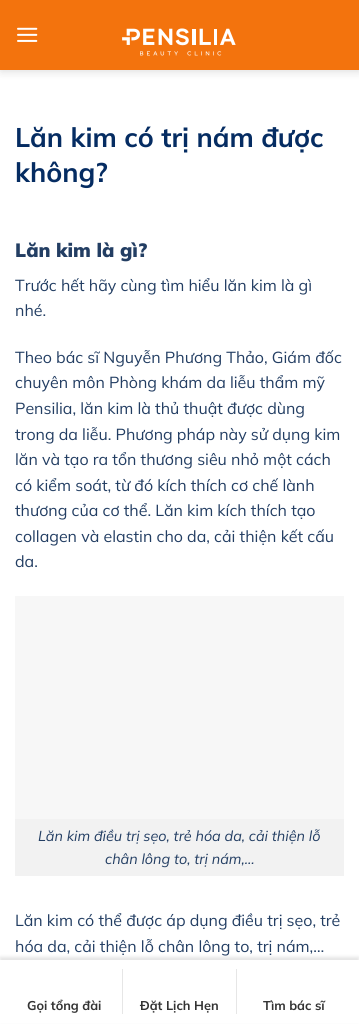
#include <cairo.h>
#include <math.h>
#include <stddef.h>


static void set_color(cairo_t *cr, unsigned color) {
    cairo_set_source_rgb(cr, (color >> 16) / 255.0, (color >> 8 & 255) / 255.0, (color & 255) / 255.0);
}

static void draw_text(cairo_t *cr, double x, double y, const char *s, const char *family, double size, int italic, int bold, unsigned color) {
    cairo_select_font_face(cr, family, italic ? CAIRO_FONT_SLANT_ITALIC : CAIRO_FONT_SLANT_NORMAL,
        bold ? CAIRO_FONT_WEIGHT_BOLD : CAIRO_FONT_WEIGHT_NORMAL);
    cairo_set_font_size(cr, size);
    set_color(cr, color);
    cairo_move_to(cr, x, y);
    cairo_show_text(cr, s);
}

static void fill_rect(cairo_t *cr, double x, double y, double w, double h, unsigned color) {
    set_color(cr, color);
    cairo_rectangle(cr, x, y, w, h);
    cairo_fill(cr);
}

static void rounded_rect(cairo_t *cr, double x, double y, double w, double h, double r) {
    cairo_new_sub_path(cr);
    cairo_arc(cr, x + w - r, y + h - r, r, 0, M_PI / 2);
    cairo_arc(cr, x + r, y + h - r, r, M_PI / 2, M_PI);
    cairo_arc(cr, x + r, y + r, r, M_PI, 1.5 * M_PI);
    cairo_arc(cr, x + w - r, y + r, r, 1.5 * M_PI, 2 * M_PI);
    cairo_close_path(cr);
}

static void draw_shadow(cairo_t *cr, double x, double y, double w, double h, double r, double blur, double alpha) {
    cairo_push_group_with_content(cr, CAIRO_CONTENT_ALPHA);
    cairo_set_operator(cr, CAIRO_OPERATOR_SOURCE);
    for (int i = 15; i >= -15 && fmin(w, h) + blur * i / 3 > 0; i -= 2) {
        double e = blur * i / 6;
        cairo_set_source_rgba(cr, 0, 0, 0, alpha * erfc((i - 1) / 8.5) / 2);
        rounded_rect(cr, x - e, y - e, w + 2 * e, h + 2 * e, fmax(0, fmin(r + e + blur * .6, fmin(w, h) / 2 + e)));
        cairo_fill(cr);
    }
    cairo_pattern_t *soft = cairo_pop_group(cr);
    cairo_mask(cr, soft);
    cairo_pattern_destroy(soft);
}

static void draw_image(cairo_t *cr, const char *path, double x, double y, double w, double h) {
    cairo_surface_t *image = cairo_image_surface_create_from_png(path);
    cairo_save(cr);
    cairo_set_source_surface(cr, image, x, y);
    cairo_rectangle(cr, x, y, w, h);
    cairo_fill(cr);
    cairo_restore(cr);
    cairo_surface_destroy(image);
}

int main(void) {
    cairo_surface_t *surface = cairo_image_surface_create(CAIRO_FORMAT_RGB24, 359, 1024);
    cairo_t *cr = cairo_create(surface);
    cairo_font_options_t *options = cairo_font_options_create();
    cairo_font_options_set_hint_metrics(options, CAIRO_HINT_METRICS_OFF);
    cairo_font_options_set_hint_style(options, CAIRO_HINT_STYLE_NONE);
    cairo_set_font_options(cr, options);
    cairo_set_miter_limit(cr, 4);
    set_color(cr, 0xFFFFFF);
    cairo_paint(cr);
    set_color(cr, 0x000000);
    draw_shadow(cr, 1, 1, 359, 70, 0, 5, 0.15);
    fill_rect(cr, 0, 0, 359, 70, 0xF3730D);
    draw_image(cr, "assets/img1.png", 17, 27, 21, 15);
    draw_image(cr, "assets/img2.png", 122, 28, 114, 28);
    draw_text(cr, 15, 147, "Lăn kim có trị nám được", "Mulish", 27, 0, 1, 0x052C62);
    draw_text(cr, 15, 182, "không?", "Mulish", 27, 0, 1, 0x052C62);
    draw_text(cr, 15, 257, "Lăn kim là gì?", "Mulish Black", 19.25, 0, 0, 0x233E63);
    draw_text(cr, 15, 291, "Trước hết hãy cùng tìm hiểu lăn kim là gì", "Mulish", 16, 0, 0, 0x233E63);
    draw_text(cr, 15, 316, "nhé.", "Mulish", 16, 0, 0, 0x233E63);
    draw_text(cr, 15, 363, "Theo bác sĩ Nguyễn Phương Thảo, Giám đốc", "Mulish", 16, 0, 0, 0x233E63);
    draw_text(cr, 15, 388, "chuyên môn Phòng khám da liễu thẩm mỹ", "Mulish", 16, 0, 0, 0x233E63);
    draw_text(cr, 15, 414, "Pensilia, lăn kim là thủ thuật được dùng", "Mulish", 16, 0, 0, 0x233E63);
    draw_text(cr, 15, 440, "trong da liễu. Phương pháp này sử dụng kim", "Mulish", 16, 0, 0, 0x233E63);
    draw_text(cr, 15, 465, "lăn và tạo ra tổn thương siêu nhỏ một cách", "Mulish", 16, 0, 0, 0x233E63);
    draw_text(cr, 15, 491, "có kiểm soát, từ đó kích thích cơ chế lành", "Mulish", 16, 0, 0, 0x233E63);
    draw_text(cr, 15, 516, "thương của cơ thể. Lăn kim kích thích tạo", "Mulish", 16, 0, 0, 0x233E63);
    draw_text(cr, 15, 542, "collagen và elastin cho da, cải thiện kết cấu", "Mulish", 16, 0, 0, 0x233E63);
    draw_text(cr, 15, 567, "da.", "Mulish", 16, 0, 0, 0x233E63);
    fill_rect(cr, 15, 596, 329, 223, 0xF7F7F7);
    fill_rect(cr, 15, 819, 329, 57, 0xF2F2F2);
    draw_text(cr, 38, 841, "Lăn kim điều trị sẹo, trẻ hóa da, cải thiện lỗ", "Mulish", 14.4, 1, 0, 0x233E63);
    draw_text(cr, 105, 864, "chân lông to, trị nám,…", "Mulish", 14.4, 1, 0, 0x233E63);
    draw_text(cr, 15, 926, "Lăn kim có thể được áp dụng điều trị sẹo, trẻ", "Mulish", 16, 0, 0, 0x233E63);
    draw_text(cr, 15, 952, "hóa da, cải thiện lỗ chân lông to, trị nám,…", "Mulish", 16, 0, 0, 0x233E63);
    set_color(cr, 0x000000);
    draw_shadow(cr, 0, 957, 359, 64, 0, 1.5, 0.1);
    fill_rect(cr, 0, 960, 359, 63, 0xFFFFFF);
    fill_rect(cr, 122, 969, 1, 45, 0xE6E6E6);
    draw_text(cr, 27, 1010, "Gọi tổng đài", "Mulish", 12.75, 0, 1, 0x333333);
    fill_rect(cr, 236, 969, 1, 45, 0xE6E6E6);
    draw_text(cr, 140, 1010, "Đặt Lịch Hẹn", "Mulish", 12.75, 0, 1, 0x333333);
    draw_text(cr, 263, 1010, "Tìm bác sĩ", "Mulish", 12.75, 0, 1, 0x333333);
    cairo_surface_write_to_png(surface, "output.png");
    cairo_font_options_destroy(options);
    cairo_destroy(cr);
    cairo_surface_destroy(surface);
    return 0;
}
